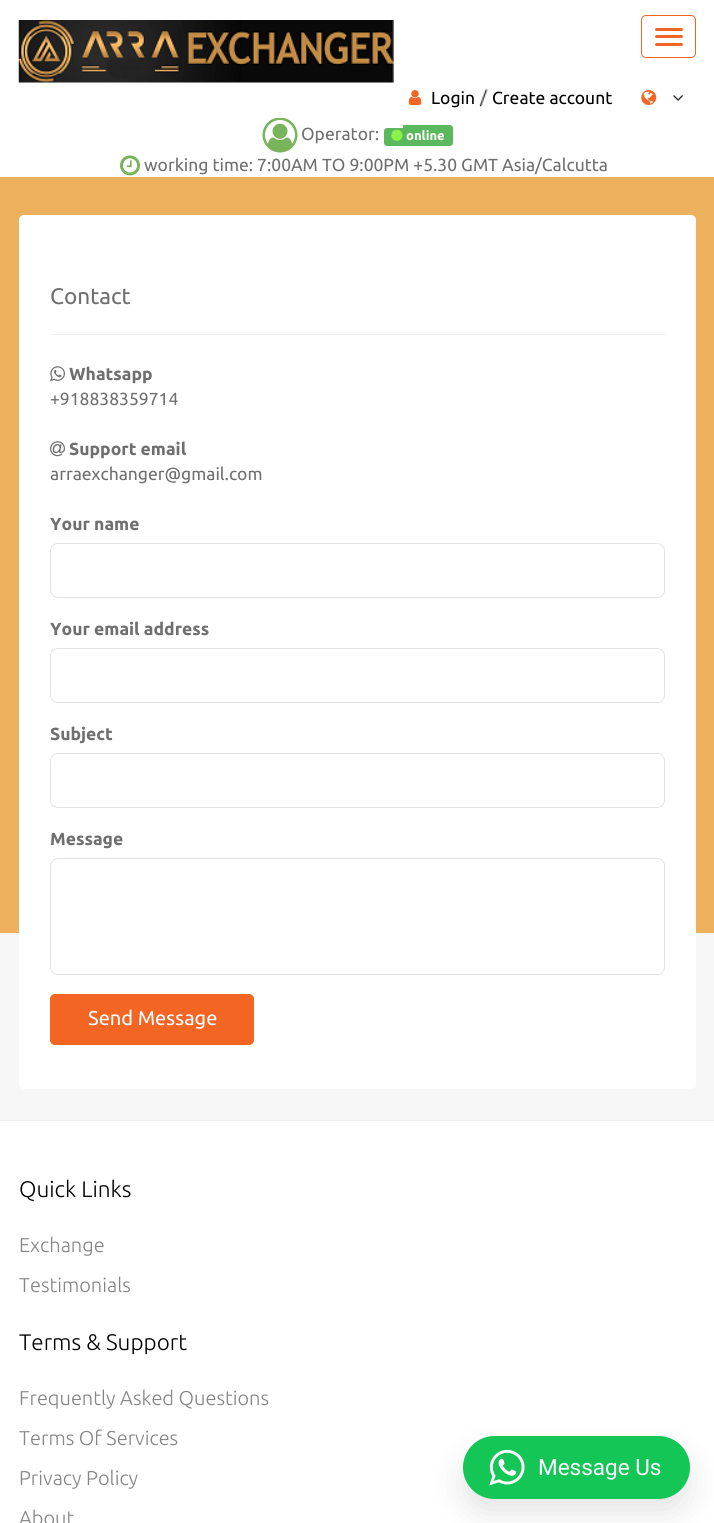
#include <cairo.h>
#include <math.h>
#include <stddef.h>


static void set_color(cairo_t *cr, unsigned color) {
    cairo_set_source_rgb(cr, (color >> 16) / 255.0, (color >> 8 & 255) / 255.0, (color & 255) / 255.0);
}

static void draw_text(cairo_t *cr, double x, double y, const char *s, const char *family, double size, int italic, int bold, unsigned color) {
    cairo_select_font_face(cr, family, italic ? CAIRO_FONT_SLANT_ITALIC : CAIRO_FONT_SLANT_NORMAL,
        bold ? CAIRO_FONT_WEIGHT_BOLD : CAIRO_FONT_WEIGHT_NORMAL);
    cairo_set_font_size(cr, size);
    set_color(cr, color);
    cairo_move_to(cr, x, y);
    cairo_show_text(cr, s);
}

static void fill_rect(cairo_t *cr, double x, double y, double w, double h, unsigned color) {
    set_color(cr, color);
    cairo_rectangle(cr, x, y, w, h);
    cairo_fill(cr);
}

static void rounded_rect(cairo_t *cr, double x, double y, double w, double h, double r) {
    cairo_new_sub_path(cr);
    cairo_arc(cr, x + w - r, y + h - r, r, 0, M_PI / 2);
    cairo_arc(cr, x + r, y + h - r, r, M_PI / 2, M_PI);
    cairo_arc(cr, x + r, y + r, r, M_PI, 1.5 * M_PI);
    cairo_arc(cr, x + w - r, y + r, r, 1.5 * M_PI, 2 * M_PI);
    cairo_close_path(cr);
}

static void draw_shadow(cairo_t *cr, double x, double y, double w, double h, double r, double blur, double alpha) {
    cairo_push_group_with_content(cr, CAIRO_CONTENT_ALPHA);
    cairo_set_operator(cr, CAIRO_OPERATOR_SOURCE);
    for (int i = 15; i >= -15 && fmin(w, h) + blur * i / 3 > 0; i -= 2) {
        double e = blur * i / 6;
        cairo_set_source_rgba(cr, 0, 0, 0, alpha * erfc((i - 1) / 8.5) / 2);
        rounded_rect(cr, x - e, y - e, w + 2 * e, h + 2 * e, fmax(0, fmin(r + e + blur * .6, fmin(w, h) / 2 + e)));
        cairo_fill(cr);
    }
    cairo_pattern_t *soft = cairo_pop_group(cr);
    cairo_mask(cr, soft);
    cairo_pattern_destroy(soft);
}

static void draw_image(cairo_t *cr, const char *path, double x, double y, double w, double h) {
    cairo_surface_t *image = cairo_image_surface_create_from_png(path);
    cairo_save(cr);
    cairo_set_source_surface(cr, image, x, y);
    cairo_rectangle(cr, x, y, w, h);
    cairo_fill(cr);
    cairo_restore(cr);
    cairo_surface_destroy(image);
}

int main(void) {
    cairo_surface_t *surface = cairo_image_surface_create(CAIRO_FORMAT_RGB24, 714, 1523);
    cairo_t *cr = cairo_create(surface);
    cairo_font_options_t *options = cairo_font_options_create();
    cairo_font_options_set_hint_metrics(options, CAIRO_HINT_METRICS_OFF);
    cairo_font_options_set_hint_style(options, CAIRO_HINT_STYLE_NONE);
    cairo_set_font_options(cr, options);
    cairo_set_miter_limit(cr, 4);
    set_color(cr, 0xFFFFFF);
    cairo_paint(cr);
    draw_image(cr, "assets/img1.png", 18, 20, 376, 63);
    rounded_rect(cr, 641.5, 15.5, 54, 42, 4.5);
    set_color(cr, 0xF26522);
    cairo_set_line_width(cr, 1);
    cairo_stroke(cr);
    rounded_rect(cr, 655, 28, 28, 3, 1.5);
    cairo_fill(cr);
    rounded_rect(cr, 655, 35, 28, 3, 1.5);
    cairo_fill(cr);
    rounded_rect(cr, 655, 43, 28, 3, 1.5);
    cairo_fill(cr);
    draw_image(cr, "assets/img2.png", 408, 90, 14, 15);
    draw_text(cr, 431, 104, "Login", "Ubuntu", 17.5, 0, 0, 0x000000);
    draw_image(cr, "assets/img3.png", 479, 88, 9, 19);
    draw_text(cr, 492, 104, "Create account", "Ubuntu", 17.5, 0, 0, 0x000000);
    draw_image(cr, "assets/img4.png", 641, 90, 16, 15);
    draw_image(cr, "assets/img5.png", 673, 95, 10, 6);
    draw_image(cr, "assets/img6.png", 262, 118, 36, 35);
    draw_text(cr, 301, 140, "Operator:", "Ubuntu", 17.5, 0, 0, 0x6F6F6F);
    set_color(cr, 0x5CB85C);
    cairo_new_path(cr);
    cairo_move_to(cr, 387, 128);
    cairo_line_to(cr, 403, 128);
    cairo_line_to(cr, 403, 146);
    cairo_line_to(cr, 387, 146);
    cairo_curve_to(cr, 385.5, 146, 384, 144.5, 384, 143);
    cairo_line_to(cr, 384, 131);
    cairo_curve_to(cr, 384, 129.5, 385.5, 128, 387, 128);
    cairo_close_path(cr);
    cairo_fill(cr);
    cairo_new_path(cr);
    cairo_move_to(cr, 403, 125);
    cairo_line_to(cr, 450, 125);
    cairo_curve_to(cr, 451.5, 125, 453, 126.5, 453, 128);
    cairo_line_to(cr, 453, 143);
    cairo_curve_to(cr, 453, 144.5, 451.5, 146, 450, 146);
    cairo_line_to(cr, 403, 146);
    cairo_close_path(cr);
    cairo_fill(cr);
    draw_image(cr, "assets/img7.png", 391, 129, 12, 12);
    draw_text(cr, 406, 140, "online", "Ubuntu", 13, 0, 1, 0xFFFFFF);
    draw_image(cr, "assets/img8.png", 120, 155, 20, 21);
    draw_text(cr, 144, 171, "working time: 7:00AM TO 9:00PM +5.30 GMT Asia/Calcutta", "Ubuntu", 17.5, 0, 0, 0x6F6F6F);
    fill_rect(cr, 0, 933, 714, 187, 0xF7F7F7);
    fill_rect(cr, 0, 177, 714, 756, 0xEDB15D);
    set_color(cr, 0xFFFFFF);
    rounded_rect(cr, 19, 215, 677, 874, 5);
    cairo_fill(cr);
    draw_text(cr, 50, 304, "Contact", "Ubuntu", 22.5, 0, 0, 0x6F6F6F);
    fill_rect(cr, 50, 334, 615, 1, 0xEEEEEE);
    draw_image(cr, "assets/img9.png", 50, 366, 15, 16);
    draw_text(cr, 69, 380, "Whatsapp", "Ubuntu", 17.5, 0, 1, 0x6F6F6F);
    draw_text(cr, 50, 405, "+918838359714", "Ubuntu", 17.5, 0, 0, 0x6F6F6F);
    draw_image(cr, "assets/img10.png", 50, 441, 15, 16);
    draw_text(cr, 69, 455, "Support email", "Ubuntu", 17.5, 0, 1, 0x6F6F6F);
    draw_text(cr, 50, 480, "arraexchanger@gmail.com", "Ubuntu", 17.5, 0, 0, 0x6F6F6F);
    draw_text(cr, 50, 530, "Your name", "Ubuntu", 17.5, 0, 1, 0x6F6F6F);
    rounded_rect(cr, 50.5, 543.5, 614, 54, 7.5);
    set_color(cr, 0xE3E3E3);
    cairo_stroke(cr);
    draw_text(cr, 50, 635, "Your email address", "Ubuntu", 17.5, 0, 1, 0x6F6F6F);
    rounded_rect(cr, 50.5, 648.5, 614, 54, 7.5);
    set_color(cr, 0xE3E3E3);
    cairo_stroke(cr);
    draw_text(cr, 50, 740, "Subject", "Ubuntu", 17.5, 0, 1, 0x6F6F6F);
    rounded_rect(cr, 50.5, 753.5, 614, 54, 7.5);
    set_color(cr, 0xE3E3E3);
    cairo_stroke(cr);
    draw_text(cr, 50, 845, "Message", "Ubuntu", 17.5, 0, 1, 0x6F6F6F);
    rounded_rect(cr, 50.5, 858.5, 614, 116, 7.5);
    set_color(cr, 0xE3E3E3);
    cairo_stroke(cr);
    set_color(cr, 0xF26522);
    rounded_rect(cr, 50, 994, 204, 51, 5);
    cairo_fill(cr);
    draw_text(cr, 88, 1025, "Send Message", "Ubuntu", 20, 0, 0, 0xFFFFFF);
    fill_rect(cr, 0, 1120, 714, 1, 0xEFEFEF);
    draw_text(cr, 19, 1197, "Quick Links", "Ubuntu Light", 22.5, 0, 0, 0x000000);
    draw_text(cr, 19, 1252, "Exchange", "Ubuntu Light", 20, 0, 0, 0x858585);
    draw_text(cr, 19, 1292, "Testimonials", "Ubuntu Light", 20, 0, 0, 0x858585);
    draw_text(cr, 19, 1350, "Terms & Support", "Ubuntu Light", 22.5, 0, 0, 0x000000);
    draw_text(cr, 19, 1405, "Frequently Asked Questions", "Ubuntu Light", 20, 0, 0, 0x858585);
    draw_text(cr, 19, 1445, "Terms Of Services", "Ubuntu Light", 20, 0, 0, 0x858585);
    draw_text(cr, 19, 1485, "Privacy Policy", "Ubuntu Light", 20, 0, 0, 0x858585);
    draw_text(cr, 19, 1525, "About", "Ubuntu Light", 20, 0, 0, 0x858585);
    set_color(cr, 0x000000);
    draw_shadow(cr, 463, 1451, 227, 63, 31.5, 15, 0.1);
    set_color(cr, 0x13C656);
    rounded_rect(cr, 463, 1436, 227, 63, 31.5);
    cairo_fill(cr);
    draw_image(cr, "assets/img11.png", 489, 1449, 36, 37);
    draw_text(cr, 538, 1475, "Message Us", "Roboto", 22.5, 0, 0, 0xFFFFFF);
    cairo_surface_write_to_png(surface, "output.png");
    cairo_font_options_destroy(options);
    cairo_destroy(cr);
    cairo_surface_destroy(surface);
    return 0;
}
